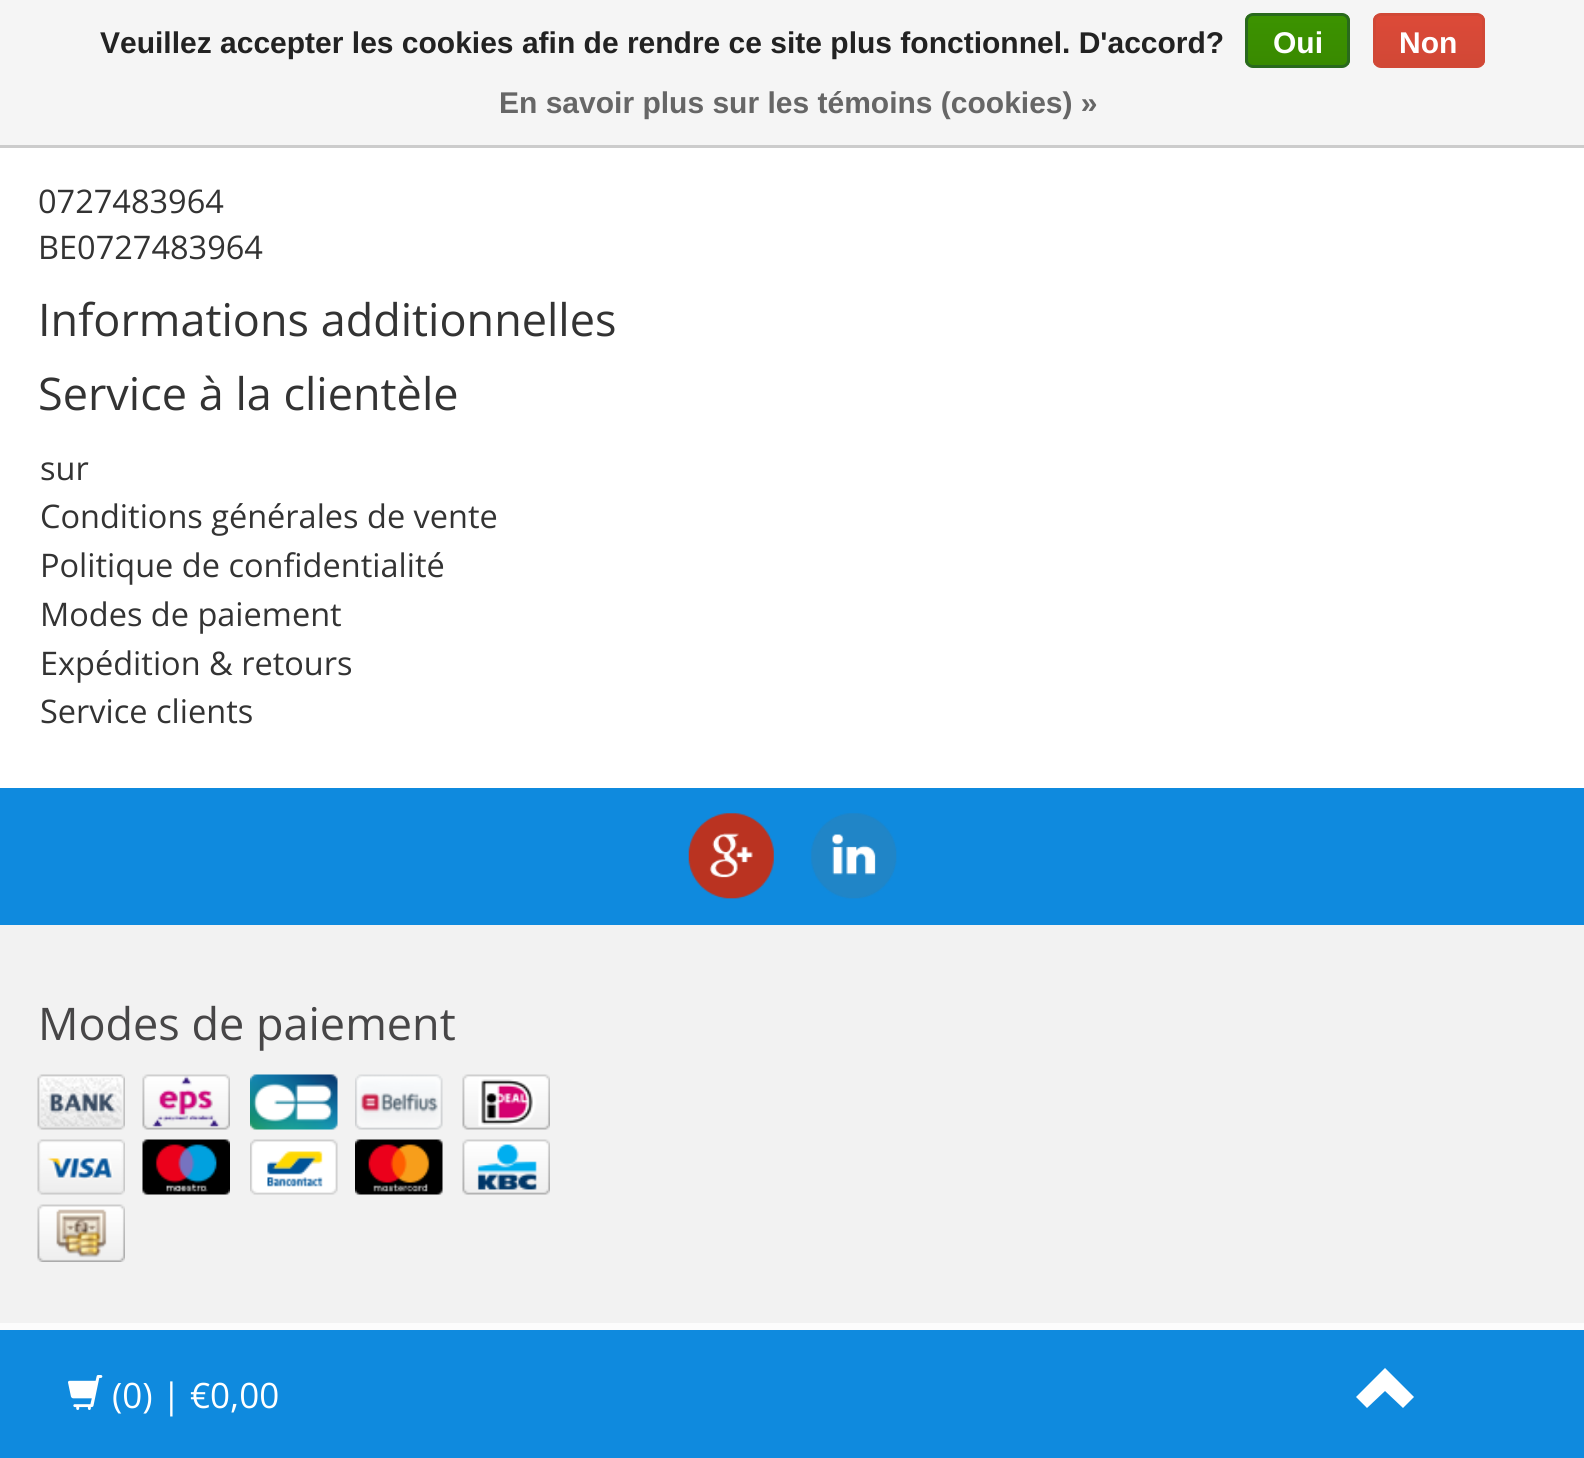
#include <cairo.h>
#include <math.h>
#include <stddef.h>


static void set_color(cairo_t *cr, unsigned color) {
    cairo_set_source_rgb(cr, (color >> 16) / 255.0, (color >> 8 & 255) / 255.0, (color & 255) / 255.0);
}

static void draw_text(cairo_t *cr, double x, double y, const char *s, const char *family, double size, int italic, int bold, unsigned color) {
    cairo_select_font_face(cr, family, italic ? CAIRO_FONT_SLANT_ITALIC : CAIRO_FONT_SLANT_NORMAL,
        bold ? CAIRO_FONT_WEIGHT_BOLD : CAIRO_FONT_WEIGHT_NORMAL);
    cairo_set_font_size(cr, size);
    set_color(cr, color);
    cairo_move_to(cr, x, y);
    cairo_show_text(cr, s);
}

static void fill_rect(cairo_t *cr, double x, double y, double w, double h, unsigned color) {
    set_color(cr, color);
    cairo_rectangle(cr, x, y, w, h);
    cairo_fill(cr);
}

static void rounded_rect(cairo_t *cr, double x, double y, double w, double h, double r) {
    cairo_new_sub_path(cr);
    cairo_arc(cr, x + w - r, y + h - r, r, 0, M_PI / 2);
    cairo_arc(cr, x + r, y + h - r, r, M_PI / 2, M_PI);
    cairo_arc(cr, x + r, y + r, r, M_PI, 1.5 * M_PI);
    cairo_arc(cr, x + w - r, y + r, r, 1.5 * M_PI, 2 * M_PI);
    cairo_close_path(cr);
}

static void draw_image(cairo_t *cr, const char *path, double x, double y, double w, double h) {
    cairo_surface_t *image = cairo_image_surface_create_from_png(path);
    cairo_save(cr);
    cairo_set_source_surface(cr, image, x, y);
    cairo_rectangle(cr, x, y, w, h);
    cairo_fill(cr);
    cairo_restore(cr);
    cairo_surface_destroy(image);
}

int main(void) {
    cairo_surface_t *surface = cairo_image_surface_create(CAIRO_FORMAT_RGB24, 1584, 1458);
    cairo_t *cr = cairo_create(surface);
    cairo_font_options_t *options = cairo_font_options_create();
    cairo_font_options_set_hint_metrics(options, CAIRO_HINT_METRICS_OFF);
    cairo_font_options_set_hint_style(options, CAIRO_HINT_STYLE_NONE);
    cairo_set_font_options(cr, options);
    cairo_set_miter_limit(cr, 4);
    cairo_pattern_t *gradient;
    set_color(cr, 0xFCFCFC);
    cairo_paint(cr);
    fill_rect(cr, 0, 0, 1584, 145, 0xF5F5F5);
    fill_rect(cr, 0, 145, 1584, 3, 0xCCCCCC);
    draw_text(cr, 100, 53, "Veuillez accepter les cookies afin de rendre ce site plus fonctionnel. D'accord?", "Liberation Sans", 30, 0, 1, 0x222222);
    cairo_save(cr);
    rounded_rect(cr, 1245, 13, 105, 55, 8);
    cairo_clip(cr);
    gradient = cairo_pattern_create_linear(1298, 15, 1298, 65);
    cairo_pattern_add_color_stop_rgba(gradient, 0, 0.235, 0.576, 0, 1);
    cairo_pattern_add_color_stop_rgba(gradient, 1, 0.224, 0.541, 0, 1);
    cairo_set_source(cr, gradient);
    cairo_pattern_destroy(gradient);
    cairo_rectangle(cr, 1245, 15, 105, 50);
    cairo_fill(cr);
    cairo_restore(cr);
    rounded_rect(cr, 1246.5, 14.5, 102, 52, 6.5);
    set_color(cr, 0x29691D);
    cairo_set_line_width(cr, 3);
    cairo_stroke(cr);
    draw_text(cr, 1273, 53, "Oui", "Liberation Sans", 30, 0, 1, 0xFFFFFF);
    cairo_save(cr);
    rounded_rect(cr, 1373, 13, 112, 55, 8);
    cairo_clip(cr);
    gradient = cairo_pattern_create_linear(1429, 15, 1429, 65);
    cairo_pattern_add_color_stop_rgba(gradient, 0, 0.863, 0.29, 0.22, 1);
    cairo_pattern_add_color_stop_rgba(gradient, 1, 0.82, 0.282, 0.212, 1);
    cairo_set_source(cr, gradient);
    cairo_pattern_destroy(gradient);
    cairo_rectangle(cr, 1373, 15, 112, 50);
    cairo_fill(cr);
    cairo_restore(cr);
    rounded_rect(cr, 1374.5, 14.5, 109, 52, 6.5);
    set_color(cr, 0xD14836);
    cairo_stroke(cr);
    draw_text(cr, 1399, 53, "Non", "Liberation Sans", 30, 0, 1, 0xFFFFFF);
    draw_text(cr, 499, 113, "En savoir plus sur les témoins (cookies) »", "Liberation Sans", 30, 0, 1, 0x666666);
    fill_rect(cr, 0, 148, 1584, 640, 0xFFFFFF);
    draw_text(cr, 38, 213, "0727483964", "Open Sans", 32.5, 0, 0, 0x333333);
    draw_text(cr, 38, 259, "BE0727483964", "Open Sans", 32.5, 0, 0, 0x333333);
    draw_text(cr, 38, 336, "Informations additionnelles", "Open Sans", 45, 0, 0, 0x333333);
    draw_text(cr, 38, 410, "Service à la clientèle", "Open Sans", 45, 0, 0, 0x333333);
    draw_text(cr, 40, 480, "sur", "Open Sans", 32.5, 0, 0, 0x333333);
    draw_text(cr, 40, 528, "Conditions générales de vente", "Open Sans", 32.5, 0, 0, 0x333333);
    draw_text(cr, 40, 577, "Politique de confidentialité", "Open Sans", 32.5, 0, 0, 0x333333);
    draw_text(cr, 40, 626, "Modes de paiement", "Open Sans", 32.5, 0, 0, 0x333333);
    draw_text(cr, 40, 675, "Expédition & retours", "Open Sans", 32.5, 0, 0, 0x333333);
    draw_text(cr, 40, 723, "Service clients", "Open Sans", 32.5, 0, 0, 0x333333);
    fill_rect(cr, 0, 788, 1584, 137, 0x0F8ADE);
    draw_image(cr, "assets/img1.png", 688, 813, 86, 86);
    draw_image(cr, "assets/img2.png", 811, 813, 86, 86);
    fill_rect(cr, 0, 925, 1584, 398, 0xF2F2F2);
    draw_text(cr, 38, 1040, "Modes de paiement", "Open Sans", 45, 0, 0, 0x474647);
    draw_image(cr, "assets/img3.png", 37, 1074, 88, 56);
    draw_image(cr, "assets/img4.png", 142, 1074, 88, 56);
    draw_image(cr, "assets/img5.png", 250, 1074, 88, 56);
    draw_image(cr, "assets/img6.png", 355, 1074, 88, 56);
    draw_image(cr, "assets/img7.png", 462, 1074, 88, 56);
    draw_image(cr, "assets/img8.png", 37, 1139, 88, 56);
    draw_image(cr, "assets/img9.png", 142, 1139, 88, 56);
    draw_image(cr, "assets/img10.png", 250, 1139, 88, 56);
    draw_image(cr, "assets/img11.png", 355, 1139, 88, 56);
    draw_image(cr, "assets/img12.png", 462, 1139, 88, 56);
    draw_image(cr, "assets/img13.png", 37, 1204, 88, 58);
    fill_rect(cr, 0, 1330, 1584, 128, 0x0F8ADE);
    draw_image(cr, "assets/img14.png", 68, 1375, 35, 35);
    draw_text(cr, 112, 1408, "(0) | €0,00", "Open Sans", 35, 0, 0, 0xFFFFFF);
    cairo_new_path(cr);
    cairo_move_to(cr, 1356, 1397);
    cairo_line_to(cr, 1367, 1408);
    cairo_line_to(cr, 1385, 1391);
    cairo_line_to(cr, 1403, 1408);
    cairo_line_to(cr, 1414, 1397);
    cairo_line_to(cr, 1385, 1368);
    cairo_close_path(cr);
    cairo_fill(cr);
    cairo_surface_write_to_png(surface, "output.png");
    cairo_font_options_destroy(options);
    cairo_destroy(cr);
    cairo_surface_destroy(surface);
    return 0;
}
